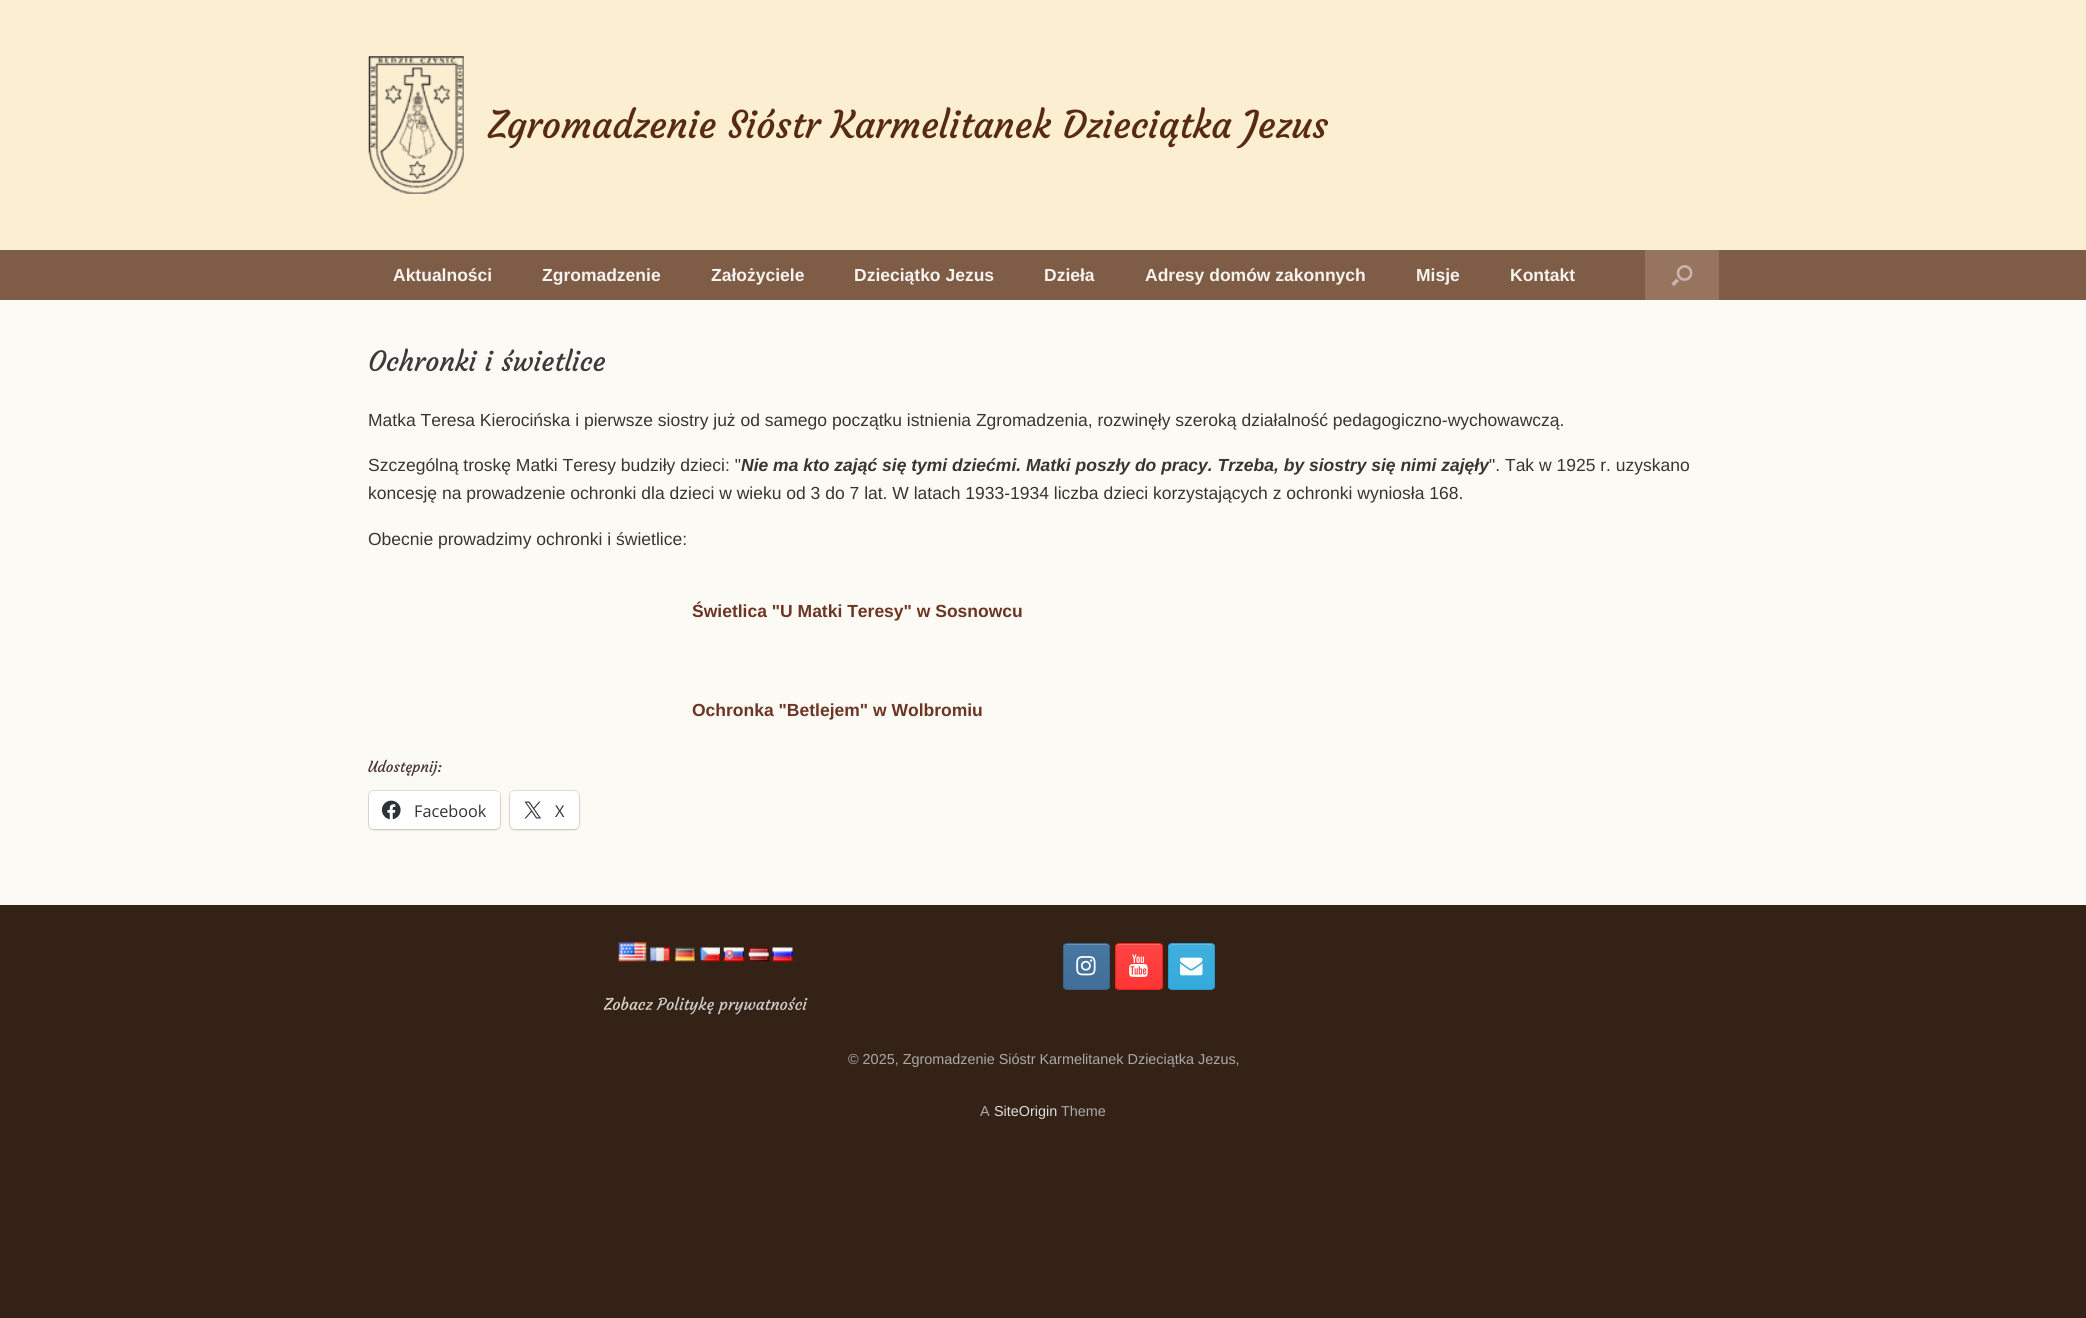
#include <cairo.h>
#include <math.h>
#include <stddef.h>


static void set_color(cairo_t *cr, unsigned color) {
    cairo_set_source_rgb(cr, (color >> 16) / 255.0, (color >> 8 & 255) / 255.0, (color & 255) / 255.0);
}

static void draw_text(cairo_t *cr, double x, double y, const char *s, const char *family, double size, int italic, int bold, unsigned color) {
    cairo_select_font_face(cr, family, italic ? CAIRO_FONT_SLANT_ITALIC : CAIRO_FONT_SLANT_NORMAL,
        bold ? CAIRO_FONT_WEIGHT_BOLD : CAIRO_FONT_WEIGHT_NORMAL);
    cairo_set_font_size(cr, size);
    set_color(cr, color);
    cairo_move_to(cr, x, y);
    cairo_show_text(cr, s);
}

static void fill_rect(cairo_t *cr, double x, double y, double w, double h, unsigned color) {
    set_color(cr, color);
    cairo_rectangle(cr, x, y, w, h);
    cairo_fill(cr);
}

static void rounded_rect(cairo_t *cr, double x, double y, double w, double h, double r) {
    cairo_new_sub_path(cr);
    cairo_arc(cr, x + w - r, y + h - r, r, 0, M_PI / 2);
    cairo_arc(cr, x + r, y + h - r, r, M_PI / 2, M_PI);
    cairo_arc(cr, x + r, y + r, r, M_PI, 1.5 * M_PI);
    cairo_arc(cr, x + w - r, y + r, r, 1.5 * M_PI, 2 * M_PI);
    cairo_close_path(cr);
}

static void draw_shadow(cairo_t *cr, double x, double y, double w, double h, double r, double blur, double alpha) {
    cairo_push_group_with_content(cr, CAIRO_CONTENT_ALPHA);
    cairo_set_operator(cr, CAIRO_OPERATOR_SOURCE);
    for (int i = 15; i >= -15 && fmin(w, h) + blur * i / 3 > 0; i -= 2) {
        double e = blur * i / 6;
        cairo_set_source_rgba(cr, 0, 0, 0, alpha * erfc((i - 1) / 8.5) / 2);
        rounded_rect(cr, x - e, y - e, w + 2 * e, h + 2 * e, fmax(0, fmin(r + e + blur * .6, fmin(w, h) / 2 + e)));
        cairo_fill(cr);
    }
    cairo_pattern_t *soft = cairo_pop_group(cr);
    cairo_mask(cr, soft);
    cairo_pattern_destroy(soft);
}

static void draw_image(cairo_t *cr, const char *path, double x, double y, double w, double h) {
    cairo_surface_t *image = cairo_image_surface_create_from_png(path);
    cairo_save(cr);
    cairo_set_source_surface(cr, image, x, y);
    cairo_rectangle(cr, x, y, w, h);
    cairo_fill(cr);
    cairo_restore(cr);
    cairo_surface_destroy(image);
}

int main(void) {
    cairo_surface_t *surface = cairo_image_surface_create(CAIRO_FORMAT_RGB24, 2086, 1318);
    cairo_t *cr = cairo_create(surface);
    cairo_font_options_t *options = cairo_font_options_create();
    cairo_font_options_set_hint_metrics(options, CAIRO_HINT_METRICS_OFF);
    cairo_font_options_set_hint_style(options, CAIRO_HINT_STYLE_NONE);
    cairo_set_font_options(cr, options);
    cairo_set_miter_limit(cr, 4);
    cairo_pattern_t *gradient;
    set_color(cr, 0x352217);
    cairo_paint(cr);
    fill_rect(cr, 0, 0, 2086, 250, 0xFCEED1);
    draw_image(cr, "assets/img1.png", 368, 56, 96, 138);
    draw_text(cr, 488, 138, "Zgromadzenie Sióstr Karmelitanek Dzieciątka Jezus", "Courgette", 37.5, 0, 0, 0x562B11);
    fill_rect(cr, 0, 250, 2086, 50, 0x7F5C46);
    draw_text(cr, 393, 281, "Aktualności", "Liberation Sans", 17.5, 0, 1, 0xF7F4EF);
    draw_text(cr, 542, 281, "Zgromadzenie", "Liberation Sans", 17.5, 0, 1, 0xF7F4EF);
    draw_text(cr, 711, 281, "Założyciele", "Liberation Sans", 17.5, 0, 1, 0xF7F4EF);
    draw_text(cr, 854, 281, "Dzieciątko Jezus", "Liberation Sans", 17.5, 0, 1, 0xF7F4EF);
    draw_text(cr, 1044, 281, "Dzieła", "Liberation Sans", 17.5, 0, 1, 0xF7F4EF);
    draw_text(cr, 1145, 281, "Adresy domów zakonnych", "Liberation Sans", 17.5, 0, 1, 0xF7F4EF);
    draw_text(cr, 1416, 281, "Misje", "Liberation Sans", 17.5, 0, 1, 0xF7F4EF);
    draw_text(cr, 1510, 281, "Kontakt", "Liberation Sans", 17.5, 0, 1, 0xF7F4EF);
    fill_rect(cr, 1645, 250, 74, 50, 0x96745D);
    draw_image(cr, "assets/img2.png", 1671, 265, 22, 21);
    fill_rect(cr, 0, 300, 2086, 605, 0xFCFAF4);
    draw_text(cr, 368, 371, "Ochronki i świetlice", "Courgette", 27.5, 0, 0, 0x3B3B3B);
    draw_text(cr, 368, 426, "Matka Teresa Kierocińska i pierwsze siostry już od samego początku istnienia Zgromadzenia, rozwinęły szeroką działalność pedagogiczno-wychowawczą.", "Liberation Sans", 17.5, 0, 0, 0x3A332E);
    draw_text(cr, 368, 471, "Szczególną troskę Matki Teresy budziły dzieci: \"", "Liberation Sans", 17.5, 0, 0, 0x3A332E);
    draw_text(cr, 741, 471, "Nie ma kto zająć się tymi dziećmi. Matki poszły do pracy. Trzeba, by siostry się nimi zajęły", "Liberation Sans", 17.5, 1, 1, 0x3A332E);
    draw_text(cr, 1489, 471, "\". Tak w 1925 r. uzyskano", "Liberation Sans", 17.5, 0, 0, 0x3A332E);
    draw_text(cr, 368, 499, "koncesję na prowadzenie ochronki dla dzieci w wieku od 3 do 7 lat. W latach 1933-1934 liczba dzieci korzystających z ochronki wyniosła 168.", "Liberation Sans", 17.5, 0, 0, 0x3A332E);
    draw_text(cr, 368, 545, "Obecnie prowadzimy ochronki i świetlice:", "Liberation Sans", 17.5, 0, 0, 0x3A332E);
    draw_text(cr, 692, 617, "Świetlica \"U Matki Teresy\" w Sosnowcu", "Liberation Sans", 17.5, 0, 1, 0x6D3523);
    draw_text(cr, 692, 716, "Ochronka \"Betlejem\" w Wolbromiu", "Liberation Sans", 17.5, 0, 1, 0x6D3523);
    draw_text(cr, 368, 772, "Udostępnij:", "Courgette", 15, 0, 0, 0x493635);
    rounded_rect(cr, 368.5, 790.5, 132, 39, 5.5);
    set_color(cr, 0xDEDCD7);
    cairo_set_line_width(cr, 1);
    cairo_stroke(cr);
    set_color(cr, 0x000000);
    draw_shadow(cr, 369, 793, 131, 37, 5, 1, 0.12);
    set_color(cr, 0xFFFFFF);
    rounded_rect(cr, 369, 791, 131, 38, 5);
    cairo_fill(cr);
    draw_image(cr, "assets/img3.png", 381, 800, 20, 20);
    draw_text(cr, 414, 817, "Facebook", "Open Sans", 16.25, 0, 0, 0x2C3338);
    rounded_rect(cr, 509.5, 790.5, 70, 39, 5.5);
    set_color(cr, 0xDEDCD7);
    cairo_stroke(cr);
    set_color(cr, 0x000000);
    draw_shadow(cr, 510, 793, 69, 37, 5, 1, 0.12);
    set_color(cr, 0xFFFFFF);
    rounded_rect(cr, 510, 791, 69, 38, 5);
    cairo_fill(cr);
    draw_image(cr, "assets/img4.png", 524, 801, 17, 18);
    draw_text(cr, 555, 817, "X", "Open Sans", 16.25, 0, 0, 0x2C3338);
    cairo_save(cr);
    rounded_rect(cr, 1063, 943, 47, 47, 4);
    cairo_clip(cr);
    gradient = cairo_pattern_create_linear(1086, 989, 1086, 944);
    cairo_pattern_add_color_stop_rgba(gradient, 0, 0.259, 0.435, 0.596, 1);
    cairo_pattern_add_color_stop_rgba(gradient, 1, 0.278, 0.467, 0.639, 1);
    cairo_set_source(cr, gradient);
    cairo_pattern_destroy(gradient);
    cairo_rectangle(cr, 1063, 944, 47, 45);
    cairo_fill(cr);
    cairo_restore(cr);
    set_color(cr, 0x6C92B5);
    cairo_new_path(cr);
    cairo_move_to(cr, 1066, 945);
    cairo_line_to(cr, 1106, 945);
    cairo_curve_to(cr, 1108, 945, 1109, 946, 1109, 948);
    cairo_curve_to(cr, 1109, 942, 1105, 944, 1100, 944);
    cairo_line_to(cr, 1073, 944);
    cairo_curve_to(cr, 1068, 944, 1064, 942, 1064, 948);
    cairo_curve_to(cr, 1064, 946, 1065, 945, 1066, 945);
    cairo_close_path(cr);
    cairo_fill(cr);
    rounded_rect(cr, 1063.5, 943.5, 46, 46, 3.5);
    set_color(cr, 0x3A6286);
    cairo_stroke(cr);
    draw_image(cr, "assets/img5.png", 1076, 956, 20, 20);
    cairo_save(cr);
    rounded_rect(cr, 1115, 943, 48, 47, 4);
    cairo_clip(cr);
    gradient = cairo_pattern_create_linear(1139, 989, 1139, 944);
    cairo_pattern_add_color_stop_rgba(gradient, 0, 1, 0.212, 0.208, 1);
    cairo_pattern_add_color_stop_rgba(gradient, 1, 1, 0.271, 0.267, 1);
    cairo_set_source(cr, gradient);
    cairo_pattern_destroy(gradient);
    cairo_rectangle(cr, 1115, 944, 48, 45);
    cairo_fill(cr);
    cairo_restore(cr);
    set_color(cr, 0xFF6A69);
    cairo_new_path(cr);
    cairo_move_to(cr, 1119, 945);
    cairo_line_to(cr, 1159, 945);
    cairo_curve_to(cr, 1160, 945, 1161, 946, 1161, 948);
    cairo_curve_to(cr, 1161, 942, 1157, 944, 1152, 944);
    cairo_line_to(cr, 1125, 944);
    cairo_curve_to(cr, 1120, 944, 1116, 942, 1116, 948);
    cairo_curve_to(cr, 1116, 946, 1117, 945, 1119, 945);
    cairo_close_path(cr);
    cairo_fill(cr);
    rounded_rect(cr, 1115.5, 943.5, 47, 46, 3.5);
    set_color(cr, 0xFF1D1B);
    cairo_stroke(cr);
    draw_image(cr, "assets/img6.png", 1129, 954, 19, 23);
    cairo_save(cr);
    rounded_rect(cr, 1168, 943, 47, 47, 4);
    cairo_clip(cr);
    gradient = cairo_pattern_create_linear(1191, 989, 1191, 944);
    cairo_pattern_add_color_stop_rgba(gradient, 0, 0.204, 0.667, 0.863, 1);
    cairo_pattern_add_color_stop_rgba(gradient, 1, 0.255, 0.686, 0.871, 1);
    cairo_set_source(cr, gradient);
    cairo_pattern_destroy(gradient);
    cairo_rectangle(cr, 1168, 944, 47, 45);
    cairo_fill(cr);
    cairo_restore(cr);
    set_color(cr, 0x67BFE5);
    cairo_new_path(cr);
    cairo_move_to(cr, 1171, 945);
    cairo_line_to(cr, 1211, 945);
    cairo_curve_to(cr, 1213, 945, 1214, 946, 1214, 948);
    cairo_curve_to(cr, 1214, 942, 1210, 944, 1205, 944);
    cairo_line_to(cr, 1178, 944);
    cairo_curve_to(cr, 1173, 944, 1169, 942, 1169, 948);
    cairo_curve_to(cr, 1169, 946, 1170, 945, 1171, 945);
    cairo_close_path(cr);
    cairo_fill(cr);
    rounded_rect(cr, 1168.5, 943.5, 46, 46, 3.5);
    set_color(cr, 0x249ED2);
    cairo_stroke(cr);
    draw_image(cr, "assets/img7.png", 1180, 957, 23, 19);
    draw_image(cr, "assets/img8.png", 618, 942, 29, 20);
    draw_image(cr, "assets/img9.png", 650, 947, 20, 15);
    draw_image(cr, "assets/img10.png", 675, 947, 20, 15);
    draw_image(cr, "assets/img11.png", 700, 947, 20, 15);
    draw_image(cr, "assets/img12.png", 723, 947, 21, 15);
    draw_image(cr, "assets/img13.png", 748, 947, 21, 15);
    draw_image(cr, "assets/img14.png", 772, 947, 21, 15);
    draw_text(cr, 604, 1010, "Zobacz", "Courgette", 16.25, 0, 0, 0xD8D2C7);
    draw_text(cr, 657, 1010, "Politykę prywatności", "Courgette", 16.25, 0, 0, 0xCCCCCC);
    draw_text(cr, 848, 1064, "© 2025, Zgromadzenie Sióstr Karmelitanek Dzieciątka Jezus,", "Liberation Sans", 14.4, 0, 0, 0xAAAAAA);
    draw_text(cr, 980, 1116, "A", "Liberation Sans", 14.4, 0, 0, 0xAAAAAA);
    draw_text(cr, 994, 1116, "SiteOrigin", "Liberation Sans", 14.4, 0, 0, 0xDDDDDD);
    draw_text(cr, 1061, 1116, "Theme", "Liberation Sans", 14.4, 0, 0, 0xAAAAAA);
    cairo_surface_write_to_png(surface, "output.png");
    cairo_font_options_destroy(options);
    cairo_destroy(cr);
    cairo_surface_destroy(surface);
    return 0;
}
